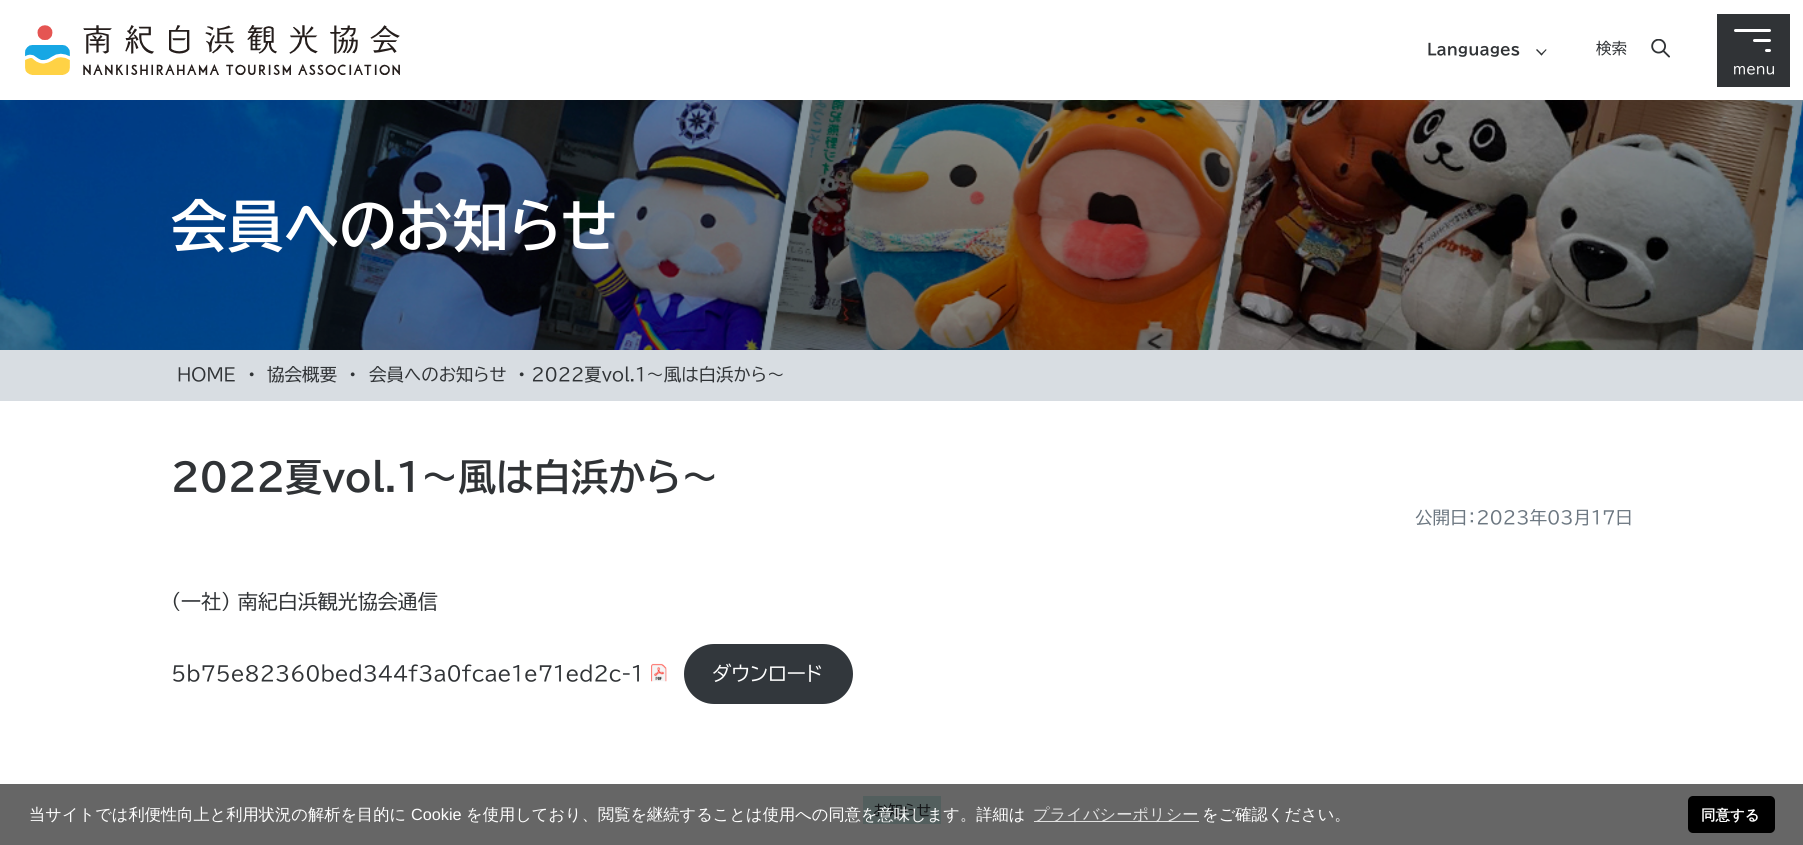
#include <cairo.h>
#include <math.h>
#include <stddef.h>


static void set_color(cairo_t *cr, unsigned color) {
    cairo_set_source_rgb(cr, (color >> 16) / 255.0, (color >> 8 & 255) / 255.0, (color & 255) / 255.0);
}

static void draw_text(cairo_t *cr, double x, double y, const char *s, const char *family, double size, int italic, int bold, unsigned color) {
    cairo_select_font_face(cr, family, italic ? CAIRO_FONT_SLANT_ITALIC : CAIRO_FONT_SLANT_NORMAL,
        bold ? CAIRO_FONT_WEIGHT_BOLD : CAIRO_FONT_WEIGHT_NORMAL);
    cairo_set_font_size(cr, size);
    set_color(cr, color);
    cairo_move_to(cr, x, y);
    cairo_show_text(cr, s);
}

static void fill_rect(cairo_t *cr, double x, double y, double w, double h, unsigned color) {
    set_color(cr, color);
    cairo_rectangle(cr, x, y, w, h);
    cairo_fill(cr);
}

static void rounded_rect(cairo_t *cr, double x, double y, double w, double h, double r) {
    cairo_new_sub_path(cr);
    cairo_arc(cr, x + w - r, y + h - r, r, 0, M_PI / 2);
    cairo_arc(cr, x + r, y + h - r, r, M_PI / 2, M_PI);
    cairo_arc(cr, x + r, y + r, r, M_PI, 1.5 * M_PI);
    cairo_arc(cr, x + w - r, y + r, r, 1.5 * M_PI, 2 * M_PI);
    cairo_close_path(cr);
}

static void draw_image(cairo_t *cr, const char *path, double x, double y, double w, double h) {
    cairo_surface_t *image = cairo_image_surface_create_from_png(path);
    cairo_save(cr);
    cairo_set_source_surface(cr, image, x, y);
    cairo_rectangle(cr, x, y, w, h);
    cairo_fill(cr);
    cairo_restore(cr);
    cairo_surface_destroy(image);
}

int main(void) {
    cairo_surface_t *surface = cairo_image_surface_create(CAIRO_FORMAT_RGB24, 1803, 845);
    cairo_t *cr = cairo_create(surface);
    cairo_font_options_t *options = cairo_font_options_create();
    cairo_font_options_set_hint_metrics(options, CAIRO_HINT_METRICS_OFF);
    cairo_font_options_set_hint_style(options, CAIRO_HINT_STYLE_NONE);
    cairo_set_font_options(cr, options);
    cairo_set_miter_limit(cr, 4);
    set_color(cr, 0xFFFFFF);
    cairo_paint(cr);
    fill_rect(cr, 0, 784, 1803, 61, 0x666666);
    draw_image(cr, "assets/img1.png", 25, 25, 375, 50);
    draw_text(cr, 1427, 55, "Languages", "BIZ UDPGothic", 15.5, 0, 1, 0x303336);
    cairo_new_path(cr);
    cairo_move_to(cr, 1546.5, 50);
    cairo_line_to(cr, 1541.5, 55.5);
    cairo_line_to(cr, 1540.5, 54.5);
    cairo_line_to(cr, 1546, 49);
    cairo_close_path(cr);
    cairo_fill(cr);
    cairo_new_path(cr);
    cairo_move_to(cr, 1542.5, 54.5);
    cairo_line_to(cr, 1541.5, 55.5);
    cairo_line_to(cr, 1536, 50);
    cairo_line_to(cr, 1537, 49);
    cairo_close_path(cr);
    cairo_fill(cr);
    draw_image(cr, "assets/img2.png", 1651, 39, 19, 19);
    draw_text(cr, 1596, 54, "検索", "BIZ UDPGothic", 15.5, 0, 0, 0x303336);
    fill_rect(cr, 1717, 14, 73, 73, 0x303336);
    set_color(cr, 0xFFFFFF);
    rounded_rect(cr, 1734, 29, 37, 3, 1.5);
    cairo_fill(cr);
    rounded_rect(cr, 1753, 39, 18, 3, 1.5);
    cairo_fill(cr);
    rounded_rect(cr, 1765, 49, 6, 3, 1.5);
    cairo_fill(cr);
    draw_text(cr, 1733, 74, "menu", "BIZ UDPGothic", 14, 0, 0, 0xFFFFFF);
    draw_image(cr, "assets/img3.png", 0, 100, 1803, 250);
    draw_text(cr, 171, 247, "会員へのお知らせ", "BIZ UDPGothic", 56.25, 0, 1, 0xFFFFFF);
    fill_rect(cr, 0, 350, 1803, 51, 0xD8DDE2);
    draw_text(cr, 177, 381, "HOME", "BIZ UDPGothic", 17.5, 0, 0, 0x303336);
    draw_text(cr, 248, 381, "•", "BIZ UDPGothic", 17.5, 0, 0, 0x303336);
    draw_text(cr, 267, 381, "協会概要", "BIZ UDPGothic", 17.5, 0, 0, 0x303336);
    draw_text(cr, 349, 381, "•", "BIZ UDPGothic", 17.5, 0, 0, 0x303336);
    draw_text(cr, 369, 381, "会員へのお知らせ", "BIZ UDPGothic", 17.5, 0, 0, 0x303336);
    draw_text(cr, 518, 381, "• 2022夏vol.1～風は白浜から～", "BIZ UDPGothic", 17.5, 0, 0, 0x303336);
    draw_text(cr, 171, 491, "2022夏vol.1～風は白浜から～", "BIZ UDPGothic", 37.5, 0, 1, 0x303336);
    draw_text(cr, 1415, 524, "公開日：2023年03月17日", "BIZ UDPGothic", 17.5, 0, 0, 0x6C7781);
    draw_text(cr, 171, 609, "（一社） 南紀白浜観光協会通信", "BIZ UDPGothic", 20, 0, 0, 0x303336);
    draw_text(cr, 171, 681, "5b75e82360bed344f3a0fcae1e71ed2c-1", "BIZ UDPGothic", 20, 0, 0, 0x303336);
    draw_image(cr, "assets/img4.png", 651, 663, 16, 19);
    set_color(cr, 0x32373C);
    rounded_rect(cr, 684, 644, 169, 60, 30);
    cairo_fill(cr);
    draw_text(cr, 712, 681, "ダウンロード", "BIZ UDPGothic", 20, 0, 0, 0xFFFFFF);
    fill_rect(cr, 863, 796, 78, 28, 0x535F5E);
    draw_text(cr, 873, 816, "お知らせ", "BIZ UDPGothic", 15, 0, 0, 0x131416);
    draw_text(cr, 29, 820, "当サイトでは利便性向上と利用状況の解析を目的に", "WenQuanYi Zen Hei Medium", 16.25, 0, 0, 0xFFFFFF);
    draw_text(cr, 411, 820, "Cookie", "Liberation Sans", 16.25, 0, 0, 0xFFFFFF);
    draw_text(cr, 466, 820, "を使用しており、閲覧を継続することは使用への同意を意味します。詳細は", "WenQuanYi Zen Hei Medium", 16.25, 0, 0, 0xFFFFFF);
    fill_rect(cr, 1034, 821, 165, 1, 0xE0E0E0);
    draw_text(cr, 1033, 820, "プライバシーポリシー", "WenQuanYi Zen Hei Medium", 16.25, 0, 0, 0xE0E0E0);
    draw_text(cr, 1202, 820, "をご確認ください。", "WenQuanYi Zen Hei Medium", 16.25, 0, 0, 0xFFFFFF);
    set_color(cr, 0x000000);
    rounded_rect(cr, 1688, 796, 87, 37, 5);
    cairo_fill(cr);
    draw_text(cr, 1701, 820, "同意する", "WenQuanYi Zen Hei", 14.5, 0, 1, 0xFFFFFF);
    cairo_surface_write_to_png(surface, "output.png");
    cairo_font_options_destroy(options);
    cairo_destroy(cr);
    cairo_surface_destroy(surface);
    return 0;
}
